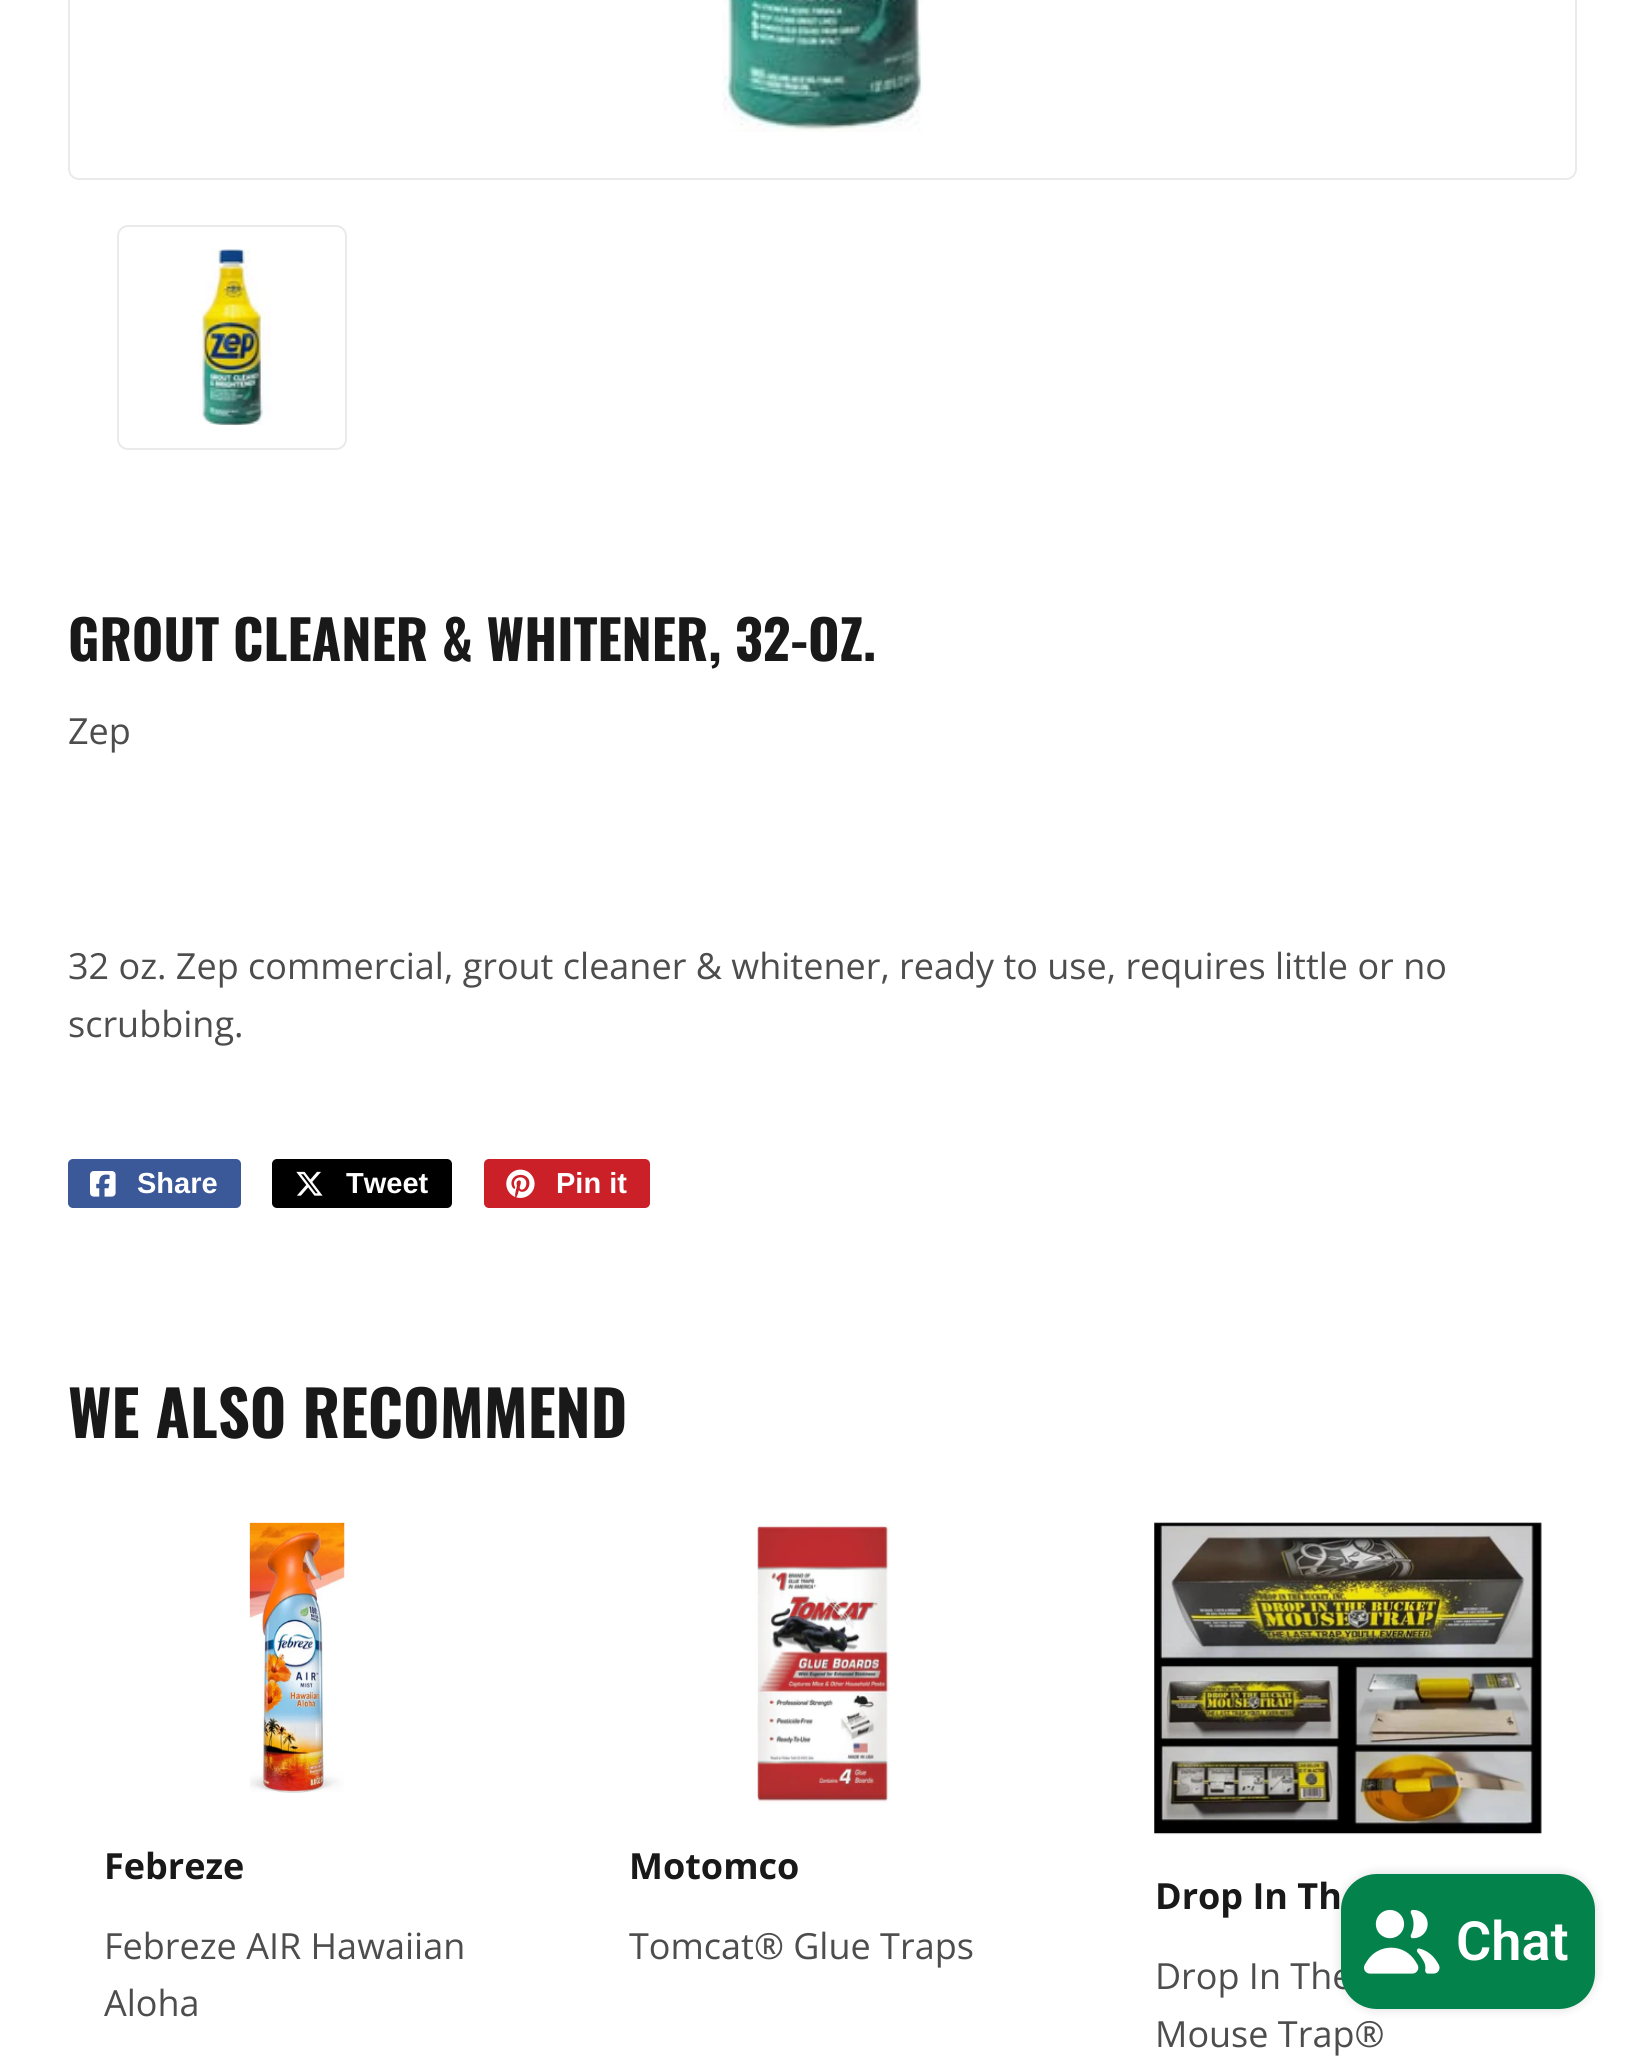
#include <cairo.h>
#include <math.h>
#include <stddef.h>


static void set_color(cairo_t *cr, unsigned color) {
    cairo_set_source_rgb(cr, (color >> 16) / 255.0, (color >> 8 & 255) / 255.0, (color & 255) / 255.0);
}

static void draw_text(cairo_t *cr, double x, double y, const char *s, const char *family, double size, int italic, int bold, unsigned color) {
    cairo_select_font_face(cr, family, italic ? CAIRO_FONT_SLANT_ITALIC : CAIRO_FONT_SLANT_NORMAL,
        bold ? CAIRO_FONT_WEIGHT_BOLD : CAIRO_FONT_WEIGHT_NORMAL);
    cairo_set_font_size(cr, size);
    set_color(cr, color);
    cairo_move_to(cr, x, y);
    cairo_show_text(cr, s);
}

static void rounded_rect(cairo_t *cr, double x, double y, double w, double h, double r) {
    cairo_new_sub_path(cr);
    cairo_arc(cr, x + w - r, y + h - r, r, 0, M_PI / 2);
    cairo_arc(cr, x + r, y + h - r, r, M_PI / 2, M_PI);
    cairo_arc(cr, x + r, y + r, r, M_PI, 1.5 * M_PI);
    cairo_arc(cr, x + w - r, y + r, r, 1.5 * M_PI, 2 * M_PI);
    cairo_close_path(cr);
}

static void draw_shadow(cairo_t *cr, double x, double y, double w, double h, double r, double blur, double alpha) {
    cairo_push_group_with_content(cr, CAIRO_CONTENT_ALPHA);
    cairo_set_operator(cr, CAIRO_OPERATOR_SOURCE);
    for (int i = 15; i >= -15 && fmin(w, h) + blur * i / 3 > 0; i -= 2) {
        double e = blur * i / 6;
        cairo_set_source_rgba(cr, 0, 0, 0, alpha * erfc((i - 1) / 8.5) / 2);
        rounded_rect(cr, x - e, y - e, w + 2 * e, h + 2 * e, fmax(0, fmin(r + e + blur * .6, fmin(w, h) / 2 + e)));
        cairo_fill(cr);
    }
    cairo_pattern_t *soft = cairo_pop_group(cr);
    cairo_mask(cr, soft);
    cairo_pattern_destroy(soft);
}

static void draw_image(cairo_t *cr, const char *path, double x, double y, double w, double h) {
    cairo_surface_t *image = cairo_image_surface_create_from_png(path);
    cairo_save(cr);
    cairo_set_source_surface(cr, image, x, y);
    cairo_rectangle(cr, x, y, w, h);
    cairo_fill(cr);
    cairo_restore(cr);
    cairo_surface_destroy(image);
}

int main(void) {
    cairo_surface_t *surface = cairo_image_surface_create(CAIRO_FORMAT_RGB24, 1644, 2056);
    cairo_t *cr = cairo_create(surface);
    cairo_font_options_t *options = cairo_font_options_create();
    cairo_font_options_set_hint_metrics(options, CAIRO_HINT_METRICS_OFF);
    cairo_font_options_set_hint_style(options, CAIRO_HINT_STYLE_NONE);
    cairo_set_font_options(cr, options);
    cairo_set_miter_limit(cr, 4);
    set_color(cr, 0xFFFFFF);
    cairo_paint(cr);
    rounded_rect(cr, 69, -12, 1507, 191, 10);
    set_color(cr, 0xEAEAEA);
    cairo_stroke(cr);
    draw_image(cr, "assets/img1.png", 722, 0, 201, 132);
    rounded_rect(cr, 118, 226, 228, 223, 10);
    cairo_stroke(cr);
    draw_image(cr, "assets/img2.png", 199, 249, 72, 176);
    draw_text(cr, 68, 661, "GROUT CLEANER & WHITENER, 32-OZ.", "Oswald", 54, 0, 1, 0x191919);
    draw_text(cr, 68, 744, "Zep", "Open Sans", 36, 0, 0, 0x4D4D4D);
    draw_text(cr, 68, 979, "32 oz. Zep commercial, grout cleaner & whitener, ready to use, requires little or no", "Open Sans", 36, 0, 0, 0x4D4D4D);
    draw_text(cr, 68, 1037, "scrubbing.", "Open Sans", 36, 0, 0, 0x4D4D4D);
    set_color(cr, 0x3B5998);
    rounded_rect(cr, 68, 1159, 173, 49, 5);
    cairo_fill(cr);
    draw_image(cr, "assets/img3.png", 90, 1171, 26, 26);
    draw_text(cr, 137, 1193, "Share", "Liberation Sans", 29, 0, 1, 0xFFFFFF);
    set_color(cr, 0x000000);
    rounded_rect(cr, 272, 1159, 180, 49, 5);
    cairo_fill(cr);
    draw_image(cr, "assets/img4.png", 296, 1171, 27, 25);
    draw_text(cr, 346, 1193, "Tweet", "Liberation Sans", 29, 0, 1, 0xFFFFFF);
    set_color(cr, 0xCB2027);
    rounded_rect(cr, 484, 1159, 166, 49, 5);
    cairo_fill(cr);
    draw_image(cr, "assets/img5.png", 506, 1169, 29, 29);
    draw_text(cr, 556, 1193, "Pin it", "Liberation Sans", 29, 0, 1, 0xFFFFFF);
    draw_text(cr, 68, 1438, "WE ALSO RECOMMEND", "Oswald", 62.5, 0, 1, 0x191919);
    draw_image(cr, "assets/img6.png", 249, 1522, 96, 271);
    draw_text(cr, 104, 1879, "Febreze", "Open Sans", 36, 0, 1, 0x191919);
    draw_text(cr, 104, 1959, "Febreze AIR Hawaiian", "Open Sans", 36, 0, 0, 0x4D4D4D);
    draw_text(cr, 104, 2016, "Aloha", "Open Sans", 36, 0, 0, 0x4D4D4D);
    draw_image(cr, "assets/img7.png", 755, 1523, 135, 281);
    draw_text(cr, 629, 1879, "Motomco", "Open Sans", 36, 0, 1, 0x191919);
    draw_text(cr, 629, 1959, "Tomcat® Glue Traps", "Open Sans", 36, 0, 0, 0x4D4D4D);
    draw_image(cr, "assets/img8.png", 1154, 1522, 388, 313);
    draw_text(cr, 1155, 1909, "Drop In Th", "Open Sans", 36, 0, 1, 0x191919);
    draw_text(cr, 1155, 1989, "Drop In The", "Open Sans", 36, 0, 0, 0x4D4D4D);
    draw_text(cr, 1155, 2047, "Mouse Trap®", "Open Sans", 36, 0, 0, 0x4D4D4D);
    set_color(cr, 0x000000);
    draw_shadow(cr, 1341, 1874, 254, 135, 36, 5.5, 0.15);
    set_color(cr, 0x04824B);
    rounded_rect(cr, 1341, 1874, 254, 135, 36);
    cairo_fill(cr);
    draw_image(cr, "assets/img9.png", 1363, 1909, 77, 65);
    draw_text(cr, 1456, 1960, "Chat", "Roboto SemiBold", 54, 0, 0, 0xFFFFFF);
    cairo_surface_write_to_png(surface, "output.png");
    cairo_font_options_destroy(options);
    cairo_destroy(cr);
    cairo_surface_destroy(surface);
    return 0;
}
